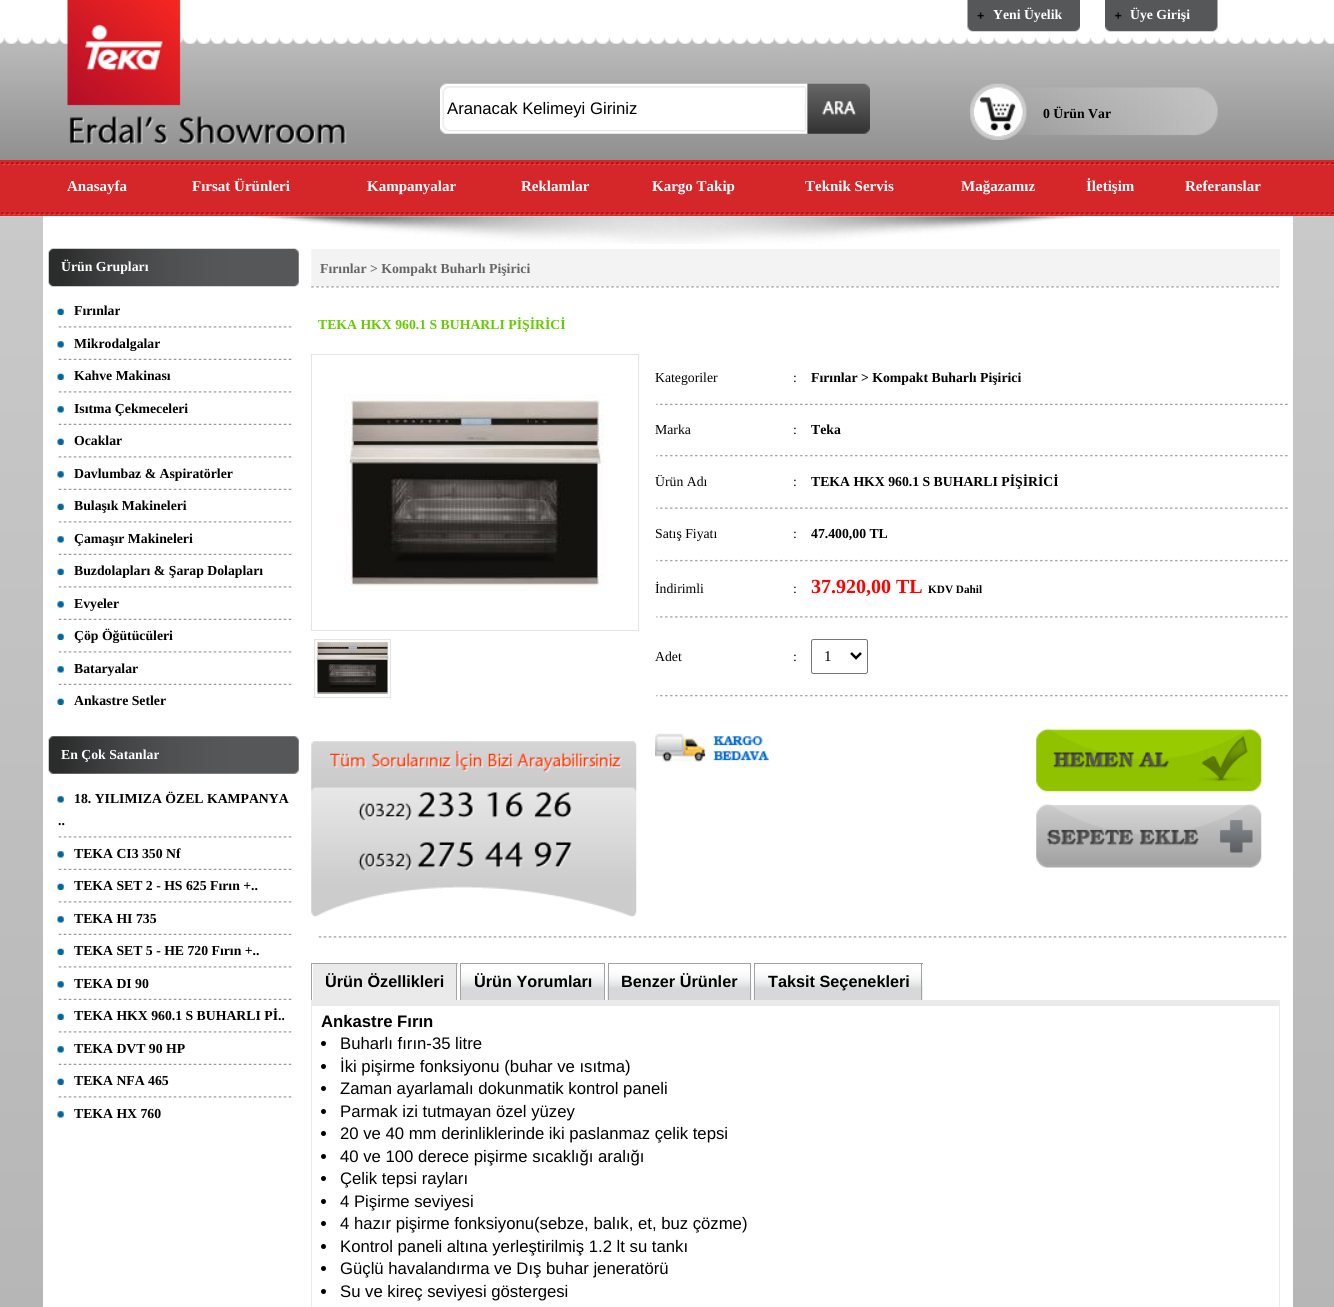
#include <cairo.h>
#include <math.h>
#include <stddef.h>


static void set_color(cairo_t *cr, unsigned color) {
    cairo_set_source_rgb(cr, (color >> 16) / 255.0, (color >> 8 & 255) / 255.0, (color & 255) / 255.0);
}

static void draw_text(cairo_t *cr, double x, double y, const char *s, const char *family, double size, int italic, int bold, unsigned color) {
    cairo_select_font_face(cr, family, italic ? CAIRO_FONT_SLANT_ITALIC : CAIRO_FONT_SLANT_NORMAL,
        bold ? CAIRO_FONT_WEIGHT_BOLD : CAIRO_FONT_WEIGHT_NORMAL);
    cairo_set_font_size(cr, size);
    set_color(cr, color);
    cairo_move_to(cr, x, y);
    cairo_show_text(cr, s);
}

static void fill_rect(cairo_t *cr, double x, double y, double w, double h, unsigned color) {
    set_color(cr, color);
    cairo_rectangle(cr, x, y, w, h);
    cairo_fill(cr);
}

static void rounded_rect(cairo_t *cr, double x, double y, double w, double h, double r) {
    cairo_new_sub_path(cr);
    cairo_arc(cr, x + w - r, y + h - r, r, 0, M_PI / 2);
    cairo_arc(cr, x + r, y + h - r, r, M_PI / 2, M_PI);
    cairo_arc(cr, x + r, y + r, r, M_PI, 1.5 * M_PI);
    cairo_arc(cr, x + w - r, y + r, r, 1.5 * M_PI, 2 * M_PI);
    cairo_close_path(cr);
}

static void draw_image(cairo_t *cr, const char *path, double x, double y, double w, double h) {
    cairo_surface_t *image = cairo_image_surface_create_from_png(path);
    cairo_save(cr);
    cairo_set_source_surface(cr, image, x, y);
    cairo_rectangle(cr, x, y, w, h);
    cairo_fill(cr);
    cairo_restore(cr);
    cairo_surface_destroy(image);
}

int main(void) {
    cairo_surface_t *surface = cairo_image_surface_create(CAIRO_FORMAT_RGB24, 1334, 1307);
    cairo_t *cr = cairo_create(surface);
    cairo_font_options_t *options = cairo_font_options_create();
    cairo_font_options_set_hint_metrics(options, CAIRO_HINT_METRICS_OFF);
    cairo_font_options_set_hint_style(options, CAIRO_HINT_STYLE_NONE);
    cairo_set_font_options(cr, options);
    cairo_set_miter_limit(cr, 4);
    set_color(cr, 0xFFFFFF);
    cairo_paint(cr);
    draw_image(cr, "assets/img1.png", 0, 37, 1334, 123);
    draw_image(cr, "assets/img2.png", 67, 0, 280, 144);
    draw_image(cr, "assets/img3.png", 440, 83, 368, 51);
    draw_text(cr, 447, 114, "Aranacak Kelimeyi Giriniz", "Liberation Sans", 16.7, 0, 0, 0x000000);
    draw_image(cr, "assets/img4.png", 807, 83, 63, 51);
    draw_image(cr, "assets/img5.png", 967, 0, 113, 32);
    draw_text(cr, 993, 19, "Yeni Üyelik", "Liberation Serif", 13.75, 0, 1, 0xFFFFFF);
    draw_image(cr, "assets/img6.png", 1105, 0, 113, 32);
    draw_text(cr, 1130, 19, "Üye Girişi", "Liberation Serif", 13.75, 0, 1, 0xFFFFFF);
    draw_image(cr, "assets/img7.png", 970, 83, 248, 57);
    draw_text(cr, 1043, 118, "0 Ürün Var", "Liberation Serif", 13.75, 0, 1, 0x000000);
    draw_image(cr, "assets/img8.png", 0, 160, 1334, 57);
    draw_text(cr, 67, 191, "Anasayfa", "Liberation Serif", 15, 0, 1, 0xFFFFFF);
    draw_text(cr, 192, 191, "Fırsat Ürünleri", "Liberation Serif", 15, 0, 1, 0xFFFFFF);
    draw_text(cr, 367, 191, "Kampanyalar", "Liberation Serif", 15, 0, 1, 0xFFFFFF);
    draw_text(cr, 521, 191, "Reklamlar", "Liberation Serif", 15, 0, 1, 0xFFFFFF);
    draw_text(cr, 652, 191, "Kargo Takip", "Liberation Serif", 15, 0, 1, 0xFFFFFF);
    draw_text(cr, 805, 191, "Teknik Servis", "Liberation Serif", 15, 0, 1, 0xFFFFFF);
    draw_text(cr, 961, 191, "Mağazamız", "Liberation Serif", 15, 0, 1, 0xFFFFFF);
    draw_text(cr, 1086, 191, "İletişim", "Liberation Serif", 15, 0, 1, 0xFFFFFF);
    draw_text(cr, 1185, 191, "Referanslar", "Liberation Serif", 15, 0, 1, 0xFFFFFF);
    draw_image(cr, "assets/img9.png", 0, 216, 1334, 1091);
    fill_rect(cr, 43, 216, 1250, 1091, 0xFFFFFF);
    draw_image(cr, "assets/img10.png", 253, 216, 829, 28);
    draw_image(cr, "assets/img11.png", 48, 248, 251, 39);
    draw_text(cr, 61, 271, "Ürün Grupları", "Liberation Serif", 13.75, 0, 1, 0xFFFFFF);
    draw_image(cr, "assets/img12.png", 57, 308, 7, 7);
    draw_text(cr, 74, 315, "Fırınlar", "Liberation Serif", 13.75, 0, 1, 0x000000);
    draw_image(cr, "assets/img13.png", 58, 326, 234, 2);
    draw_image(cr, "assets/img14.png", 57, 341, 7, 7);
    draw_text(cr, 74, 348, "Mikrodalgalar", "Liberation Serif", 13.75, 0, 1, 0x000000);
    draw_image(cr, "assets/img15.png", 58, 358, 234, 2);
    draw_image(cr, "assets/img12.png", 57, 373, 7, 7);
    draw_text(cr, 74, 380, "Kahve Makinası", "Liberation Serif", 13.75, 0, 1, 0x000000);
    draw_image(cr, "assets/img13.png", 58, 391, 234, 2);
    draw_image(cr, "assets/img14.png", 57, 406, 7, 7);
    draw_text(cr, 74, 413, "Isıtma Çekmeceleri", "Liberation Serif", 13.75, 0, 1, 0x000000);
    draw_image(cr, "assets/img15.png", 58, 423, 234, 2);
    draw_image(cr, "assets/img12.png", 57, 438, 7, 7);
    draw_text(cr, 74, 445, "Ocaklar", "Liberation Serif", 13.75, 0, 1, 0x000000);
    draw_image(cr, "assets/img13.png", 58, 456, 234, 2);
    draw_image(cr, "assets/img14.png", 57, 471, 7, 7);
    draw_text(cr, 74, 478, "Davlumbaz & Aspiratörler", "Liberation Serif", 13.75, 0, 1, 0x000000);
    draw_image(cr, "assets/img15.png", 58, 488, 234, 2);
    draw_image(cr, "assets/img12.png", 57, 503, 7, 7);
    draw_text(cr, 74, 510, "Bulaşık Makineleri", "Liberation Serif", 13.75, 0, 1, 0x000000);
    draw_image(cr, "assets/img13.png", 58, 521, 234, 2);
    draw_image(cr, "assets/img14.png", 57, 536, 7, 7);
    draw_text(cr, 74, 543, "Çamaşır Makineleri", "Liberation Serif", 13.75, 0, 1, 0x000000);
    draw_image(cr, "assets/img15.png", 58, 553, 234, 2);
    draw_image(cr, "assets/img12.png", 57, 568, 7, 7);
    draw_text(cr, 74, 575, "Buzdolapları & Şarap Dolapları", "Liberation Serif", 13.75, 0, 1, 0x000000);
    draw_image(cr, "assets/img13.png", 58, 586, 234, 2);
    draw_image(cr, "assets/img14.png", 57, 601, 7, 7);
    draw_text(cr, 74, 608, "Evyeler", "Liberation Serif", 13.75, 0, 1, 0x000000);
    draw_image(cr, "assets/img15.png", 58, 618, 234, 2);
    draw_image(cr, "assets/img12.png", 57, 633, 7, 7);
    draw_text(cr, 74, 640, "Çöp Öğütücüleri", "Liberation Serif", 13.75, 0, 1, 0x000000);
    draw_image(cr, "assets/img13.png", 58, 651, 234, 2);
    draw_image(cr, "assets/img14.png", 57, 666, 7, 7);
    draw_text(cr, 74, 673, "Bataryalar", "Liberation Serif", 13.75, 0, 1, 0x000000);
    draw_image(cr, "assets/img15.png", 58, 683, 234, 2);
    draw_image(cr, "assets/img12.png", 57, 698, 7, 7);
    draw_text(cr, 74, 705, "Ankastre Setler", "Liberation Serif", 13.75, 0, 1, 0x000000);
    draw_image(cr, "assets/img16.png", 48, 736, 251, 38);
    draw_text(cr, 61, 759, "En Çok Satanlar", "Liberation Serif", 13.75, 0, 1, 0xFFFFFF);
    draw_image(cr, "assets/img14.png", 57, 796, 7, 7);
    draw_text(cr, 74, 803, "18. YILIMIZA ÖZEL KAMPANYA", "Liberation Serif", 13.75, 0, 1, 0x000000);
    draw_text(cr, 58, 825, "..", "Liberation Serif", 13.75, 0, 1, 0x000000);
    draw_image(cr, "assets/img13.png", 58, 836, 234, 2);
    draw_image(cr, "assets/img14.png", 57, 851, 7, 7);
    draw_text(cr, 74, 858, "TEKA CI3 350 Nf", "Liberation Serif", 13.75, 0, 1, 0x000000);
    draw_image(cr, "assets/img15.png", 58, 868, 234, 2);
    draw_image(cr, "assets/img12.png", 57, 883, 7, 7);
    draw_text(cr, 74, 890, "TEKA SET 2 - HS 625 Fırın +..", "Liberation Serif", 13.75, 0, 1, 0x000000);
    draw_image(cr, "assets/img13.png", 58, 901, 234, 2);
    draw_image(cr, "assets/img14.png", 57, 916, 7, 7);
    draw_text(cr, 74, 923, "TEKA HI 735", "Liberation Serif", 13.75, 0, 1, 0x000000);
    draw_image(cr, "assets/img15.png", 58, 933, 234, 2);
    draw_image(cr, "assets/img12.png", 57, 948, 7, 7);
    draw_text(cr, 74, 955, "TEKA SET 5 - HE 720 Fırın +..", "Liberation Serif", 13.75, 0, 1, 0x000000);
    draw_image(cr, "assets/img13.png", 58, 966, 234, 2);
    draw_image(cr, "assets/img14.png", 57, 981, 7, 7);
    draw_text(cr, 74, 988, "TEKA DI 90", "Liberation Serif", 13.75, 0, 1, 0x000000);
    draw_image(cr, "assets/img15.png", 58, 998, 234, 2);
    draw_image(cr, "assets/img12.png", 57, 1013, 7, 7);
    draw_text(cr, 74, 1020, "TEKA HKX 960.1 S BUHARLI Pİ..", "Liberation Serif", 13.75, 0, 1, 0x000000);
    draw_image(cr, "assets/img13.png", 58, 1031, 234, 2);
    draw_image(cr, "assets/img14.png", 57, 1046, 7, 7);
    draw_text(cr, 74, 1053, "TEKA DVT 90 HP", "Liberation Serif", 13.75, 0, 1, 0x000000);
    draw_image(cr, "assets/img15.png", 58, 1063, 234, 2);
    draw_image(cr, "assets/img12.png", 57, 1078, 7, 7);
    draw_text(cr, 74, 1085, "TEKA NFA 465", "Liberation Serif", 13.75, 0, 1, 0x000000);
    draw_image(cr, "assets/img13.png", 58, 1096, 234, 2);
    draw_image(cr, "assets/img14.png", 57, 1111, 7, 7);
    draw_text(cr, 74, 1118, "TEKA HX 760", "Liberation Serif", 13.75, 0, 1, 0x000000);
    draw_image(cr, "assets/img17.png", 311, 249, 969, 39);
    draw_text(cr, 320, 273, "Fırınlar > Kompakt Buharlı Pişirici", "Liberation Serif", 13.75, 0, 1, 0x666666);
    draw_text(cr, 318, 329, "TEKA HKX 960.1 S BUHARLI PİŞİRİCİ", "Liberation Serif", 13.75, 0, 1, 0x66CC00);
    cairo_rectangle(cr, 311.5, 354.5, 327, 276);
    set_color(cr, 0xE4E4E4);
    cairo_set_line_width(cr, 1);
    cairo_stroke(cr);
    draw_image(cr, "assets/img18.png", 344, 394, 260, 199);
    cairo_rectangle(cr, 314.5, 639.5, 76, 58);
    cairo_stroke(cr);
    draw_image(cr, "assets/img19.png", 315, 640, 74, 55);
    draw_image(cr, "assets/img20.png", 311, 741, 326, 176);
    draw_text(cr, 655, 382, "Kategoriler", "Liberation Serif", 13.75, 0, 0, 0x000000);
    draw_text(cr, 793, 382, ":", "Liberation Serif", 13.75, 0, 0, 0x000000);
    draw_text(cr, 811, 382, "Fırınlar > Kompakt Buharlı Pişirici", "Liberation Serif", 13.75, 0, 1, 0x000000);
    draw_image(cr, "assets/img21.png", 656, 403, 632, 2);
    draw_text(cr, 655, 434, "Marka", "Liberation Serif", 13.75, 0, 0, 0x000000);
    draw_text(cr, 793, 434, ":", "Liberation Serif", 13.75, 0, 0, 0x000000);
    draw_text(cr, 811, 434, "Teka", "Liberation Serif", 13.75, 0, 1, 0x000000);
    draw_image(cr, "assets/img22.png", 656, 454, 632, 3);
    draw_text(cr, 655, 486, "Ürün Adı", "Liberation Serif", 13.75, 0, 0, 0x000000);
    draw_text(cr, 793, 486, ":", "Liberation Serif", 13.75, 0, 0, 0x000000);
    draw_text(cr, 811, 486, "TEKA HKX 960.1 S BUHARLI PİŞİRİCİ", "Liberation Serif", 13.75, 0, 1, 0x000000);
    draw_image(cr, "assets/img23.png", 656, 507, 632, 2);
    draw_text(cr, 655, 538, "Satış Fiyatı", "Liberation Serif", 13.75, 0, 0, 0x000000);
    draw_text(cr, 793, 538, ":", "Liberation Serif", 13.75, 0, 0, 0x000000);
    draw_text(cr, 811, 538, "47.400,00 TL", "Liberation Serif", 13.75, 0, 1, 0x000000);
    draw_image(cr, "assets/img22.png", 656, 559, 632, 3);
    draw_text(cr, 655, 593, "İndirimli", "Liberation Serif", 13.75, 0, 0, 0x000000);
    draw_text(cr, 793, 593, ":", "Liberation Serif", 13.75, 0, 0, 0x000000);
    draw_text(cr, 811, 593, "37.920,00 TL", "Liberation Serif", 20, 0, 1, 0xFF0000);
    draw_text(cr, 928, 593, "KDV Dahil", "Liberation Serif", 11.25, 0, 1, 0x000000);
    draw_image(cr, "assets/img24.png", 656, 616, 632, 2);
    draw_text(cr, 655, 661, "Adet", "Liberation Serif", 13.75, 0, 0, 0x000000);
    draw_text(cr, 793, 661, ":", "Liberation Serif", 13.75, 0, 0, 0x000000);
    rounded_rect(cr, 811.5, 639.5, 56, 34, 2);
    set_color(cr, 0x767676);
    cairo_stroke(cr);
    cairo_new_path(cr);
    cairo_move_to(cr, 851, 653);
    cairo_line_to(cr, 856, 658);
    cairo_line_to(cr, 861, 653);
    set_color(cr, 0x000000);
    cairo_set_line_width(cr, 2.5);
    cairo_stroke(cr);
    draw_text(cr, 824, 661, "1", "Liberation Serif", 15, 0, 0, 0x000000);
    draw_image(cr, "assets/img22.png", 656, 694, 632, 3);
    draw_image(cr, "assets/img25.png", 655, 733, 114, 29);
    draw_image(cr, "assets/img26.png", 1036, 728, 226, 64);
    draw_image(cr, "assets/img27.png", 1036, 804, 226, 64);
    draw_image(cr, "assets/img28.png", 318, 936, 969, 2);
    fill_rect(cr, 311, 1000, 969, 6, 0xEAEAEA);
    fill_rect(cr, 313, 964, 143, 36, 0xEAEAEA);
    fill_rect(cr, 311, 963, 147, 1, 0xA3A3A3);
    fill_rect(cr, 456, 963, 1, 37, 0xA3A3A3);
    fill_rect(cr, 311, 963, 1, 37, 0xA3A3A3);
    draw_text(cr, 325, 987, "Ürün Özellikleri", "Liberation Sans", 16.25, 0, 1, 0x000000);
    draw_image(cr, "assets/img29.png", 461, 964, 143, 36);
    fill_rect(cr, 460, 963, 145, 1, 0xA3A3A3);
    fill_rect(cr, 604, 963, 1, 37, 0xA3A3A3);
    fill_rect(cr, 460, 963, 1, 37, 0xA3A3A3);
    draw_text(cr, 474, 987, "Ürün Yorumları", "Liberation Sans", 16.25, 0, 1, 0x000000);
    draw_image(cr, "assets/img30.png", 607, 964, 145, 36);
    fill_rect(cr, 608, 963, 143, 1, 0xA3A3A3);
    fill_rect(cr, 750, 963, 1, 37, 0xA3A3A3);
    fill_rect(cr, 608, 963, 1, 37, 0xA3A3A3);
    draw_text(cr, 621, 987, "Benzer Ürünler", "Liberation Sans", 16.25, 0, 1, 0x000000);
    draw_image(cr, "assets/img31.png", 753, 964, 170, 36);
    fill_rect(cr, 754, 963, 169, 1, 0xA3A3A3);
    fill_rect(cr, 921, 963, 1, 37, 0xA3A3A3);
    fill_rect(cr, 754, 963, 1, 37, 0xA3A3A3);
    draw_text(cr, 768, 987, "Taksit Seçenekleri", "Liberation Sans", 16.25, 0, 1, 0x000000);
    fill_rect(cr, 1279, 1006, 1, 301, 0xEAEAEA);
    fill_rect(cr, 311, 1006, 1, 301, 0xEAEAEA);
    draw_text(cr, 321, 1027, "Ankastre Fırın", "Liberation Sans", 16.7, 0, 1, 0x000000);
    cairo_new_path(cr);
    cairo_arc(cr, 323.5, 1043.5, 2.5, 0, 2 * M_PI);
    cairo_fill(cr);
    draw_text(cr, 340, 1049, "Buharlı fırın-35 litre", "Liberation Sans", 16.7, 0, 0, 0x000000);
    cairo_new_path(cr);
    cairo_arc(cr, 323.5, 1066.5, 2.5, 0, 2 * M_PI);
    cairo_fill(cr);
    draw_text(cr, 340, 1072, "İki pişirme fonksiyonu (buhar ve ısıtma)", "Liberation Sans", 16.7, 0, 0, 0x000000);
    cairo_new_path(cr);
    cairo_arc(cr, 323.5, 1088.5, 2.5, 0, 2 * M_PI);
    cairo_fill(cr);
    draw_text(cr, 340, 1094, "Zaman ayarlamalı dokunmatik kontrol paneli", "Liberation Sans", 16.7, 0, 0, 0x000000);
    cairo_new_path(cr);
    cairo_arc(cr, 323.5, 1111.5, 2.5, 0, 2 * M_PI);
    cairo_fill(cr);
    draw_text(cr, 340, 1117, "Parmak izi tutmayan özel yüzey", "Liberation Sans", 16.7, 0, 0, 0x000000);
    cairo_new_path(cr);
    cairo_arc(cr, 323.5, 1133.5, 2.5, 0, 2 * M_PI);
    cairo_fill(cr);
    draw_text(cr, 340, 1139, "20 ve 40 mm derinliklerinde iki paslanmaz çelik tepsi", "Liberation Sans", 16.7, 0, 0, 0x000000);
    cairo_new_path(cr);
    cairo_arc(cr, 323.5, 1156.5, 2.5, 0, 2 * M_PI);
    cairo_fill(cr);
    draw_text(cr, 340, 1162, "40 ve 100 derece pişirme sıcaklığı aralığı", "Liberation Sans", 16.7, 0, 0, 0x000000);
    cairo_new_path(cr);
    cairo_arc(cr, 323.5, 1178.5, 2.5, 0, 2 * M_PI);
    cairo_fill(cr);
    draw_text(cr, 340, 1184, "Çelik tepsi rayları", "Liberation Sans", 16.7, 0, 0, 0x000000);
    cairo_new_path(cr);
    cairo_arc(cr, 323.5, 1201.5, 2.5, 0, 2 * M_PI);
    cairo_fill(cr);
    draw_text(cr, 340, 1207, "4 Pişirme seviyesi", "Liberation Sans", 16.7, 0, 0, 0x000000);
    cairo_new_path(cr);
    cairo_arc(cr, 323.5, 1223.5, 2.5, 0, 2 * M_PI);
    cairo_fill(cr);
    draw_text(cr, 340, 1229, "4 hazır pişirme fonksiyonu(sebze, balık, et, buz çözme)", "Liberation Sans", 16.7, 0, 0, 0x000000);
    cairo_new_path(cr);
    cairo_arc(cr, 323.5, 1246.5, 2.5, 0, 2 * M_PI);
    cairo_fill(cr);
    draw_text(cr, 340, 1252, "Kontrol paneli altına yerleştirilmiş 1.2 lt su tankı", "Liberation Sans", 16.7, 0, 0, 0x000000);
    cairo_new_path(cr);
    cairo_arc(cr, 323.5, 1268.5, 2.5, 0, 2 * M_PI);
    cairo_fill(cr);
    draw_text(cr, 340, 1274, "Güçlü havalandırma ve Dış buhar jeneratörü", "Liberation Sans", 16.7, 0, 0, 0x000000);
    cairo_new_path(cr);
    cairo_arc(cr, 323.5, 1291.5, 2.5, 0, 2 * M_PI);
    cairo_fill(cr);
    draw_text(cr, 340, 1297, "Su ve kireç seviyesi göstergesi", "Liberation Sans", 16.7, 0, 0, 0x000000);
    cairo_surface_write_to_png(surface, "output.png");
    cairo_font_options_destroy(options);
    cairo_destroy(cr);
    cairo_surface_destroy(surface);
    return 0;
}
